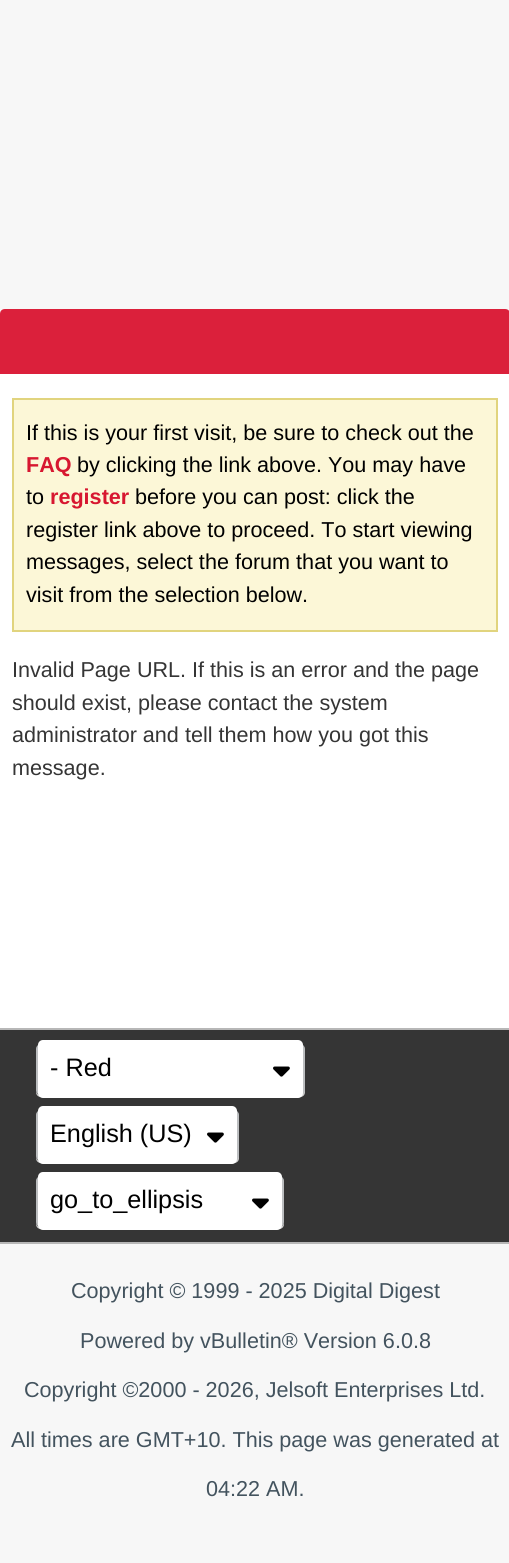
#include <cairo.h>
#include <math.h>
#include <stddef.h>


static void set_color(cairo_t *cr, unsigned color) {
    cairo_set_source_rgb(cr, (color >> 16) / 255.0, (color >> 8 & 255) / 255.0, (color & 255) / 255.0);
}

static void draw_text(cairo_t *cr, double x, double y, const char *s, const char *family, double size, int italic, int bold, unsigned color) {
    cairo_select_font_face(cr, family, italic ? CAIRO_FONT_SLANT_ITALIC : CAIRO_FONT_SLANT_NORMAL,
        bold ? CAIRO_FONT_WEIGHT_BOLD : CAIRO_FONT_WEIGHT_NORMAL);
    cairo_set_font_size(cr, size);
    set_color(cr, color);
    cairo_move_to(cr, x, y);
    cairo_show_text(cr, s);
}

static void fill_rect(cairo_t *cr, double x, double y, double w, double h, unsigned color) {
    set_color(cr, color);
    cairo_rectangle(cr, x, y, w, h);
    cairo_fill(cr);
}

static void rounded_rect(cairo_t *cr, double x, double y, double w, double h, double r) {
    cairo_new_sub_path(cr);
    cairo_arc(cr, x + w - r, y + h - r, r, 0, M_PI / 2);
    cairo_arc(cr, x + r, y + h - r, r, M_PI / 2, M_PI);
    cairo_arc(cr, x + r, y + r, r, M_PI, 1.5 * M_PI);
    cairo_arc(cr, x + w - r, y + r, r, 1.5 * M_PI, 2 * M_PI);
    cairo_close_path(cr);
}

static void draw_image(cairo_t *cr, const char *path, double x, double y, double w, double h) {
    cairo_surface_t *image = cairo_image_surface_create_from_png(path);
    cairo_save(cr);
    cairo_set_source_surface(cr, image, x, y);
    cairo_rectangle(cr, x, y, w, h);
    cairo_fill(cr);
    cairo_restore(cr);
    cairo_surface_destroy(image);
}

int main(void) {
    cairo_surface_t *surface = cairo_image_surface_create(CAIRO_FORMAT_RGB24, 509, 1563);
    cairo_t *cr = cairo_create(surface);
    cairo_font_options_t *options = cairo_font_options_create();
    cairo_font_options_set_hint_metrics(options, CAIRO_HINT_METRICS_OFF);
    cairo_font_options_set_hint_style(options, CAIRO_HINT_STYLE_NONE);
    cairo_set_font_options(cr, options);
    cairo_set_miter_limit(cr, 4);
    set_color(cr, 0xF7F7F7);
    cairo_paint(cr);
    set_color(cr, 0xDB203B);
    cairo_new_path(cr);
    cairo_move_to(cr, 5, 309);
    cairo_line_to(cr, 505, 309);
    cairo_curve_to(cr, 508, 309, 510, 311, 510, 314);
    cairo_line_to(cr, 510, 374);
    cairo_line_to(cr, 0, 374);
    cairo_line_to(cr, 0, 314);
    cairo_curve_to(cr, 0, 311, 2, 309, 5, 309);
    cairo_close_path(cr);
    cairo_fill(cr);
    fill_rect(cr, 0, 374, 509, 654, 0xFFFFFF);
    set_color(cr, 0xFCF7D7);
    cairo_rectangle(cr, 13, 399, 484, 232);
    cairo_fill_preserve(cr);
    set_color(cr, 0xE1D47E);
    cairo_stroke(cr);
    draw_text(cr, 26, 440, "If this is your first visit, be sure to check out the", "Liberation Sans", 21.6, 0, 0, 0x000000);
    draw_text(cr, 26, 472, "FAQ", "Liberation Sans", 21.6, 0, 1, 0xD71730);
    draw_text(cr, 77, 472, "by clicking the link above. You may have", "Liberation Sans", 21.6, 0, 0, 0x000000);
    draw_text(cr, 26, 504, "to", "Liberation Sans", 21.6, 0, 0, 0x000000);
    draw_text(cr, 50, 504, "register", "Liberation Sans", 21.6, 0, 1, 0xD71730);
    draw_text(cr, 135, 504, "before you can post: click the", "Liberation Sans", 21.6, 0, 0, 0x000000);
    draw_text(cr, 26, 537, "register link above to proceed. To start viewing", "Liberation Sans", 21.6, 0, 0, 0x000000);
    draw_text(cr, 26, 569, "messages, select the forum that you want to", "Liberation Sans", 21.6, 0, 0, 0x000000);
    draw_text(cr, 26, 602, "visit from the selection below.", "Liberation Sans", 21.6, 0, 0, 0x000000);
    draw_text(cr, 12, 677, "Invalid Page URL. If this is an error and the page", "Liberation Sans", 21.6, 0, 0, 0x353535);
    draw_text(cr, 12, 710, "should exist, please contact the system", "Liberation Sans", 21.6, 0, 0, 0x353535);
    draw_text(cr, 12, 742, "administrator and tell them how you got this", "Liberation Sans", 21.6, 0, 0, 0x353535);
    draw_text(cr, 12, 775, "message.", "Liberation Sans", 21.6, 0, 0, 0x353535);
    fill_rect(cr, 0, 1030, 509, 212, 0x353535);
    fill_rect(cr, 0, 1028, 509, 2, 0xB7B7B7);
    fill_rect(cr, 0, 1242, 509, 2, 0xB7B7B7);
    set_color(cr, 0xCDCDCD);
    cairo_new_path(cr);
    cairo_move_to(cr, 36, 1090);
    cairo_line_to(cr, 36, 1092);
    cairo_curve_to(cr, 36, 1095, 38, 1097, 41, 1097);
    cairo_line_to(cr, 300, 1097);
    cairo_curve_to(cr, 303, 1097, 305, 1095, 305, 1092);
    cairo_line_to(cr, 305, 1051);
    cairo_line_to(cr, 304, 1049);
    cairo_line_to(cr, 304, 1090);
    cairo_curve_to(cr, 304, 1093, 302, 1095, 300, 1095);
    cairo_line_to(cr, 40, 1095);
    cairo_curve_to(cr, 38, 1095, 36, 1093, 36, 1090);
    cairo_close_path(cr);
    cairo_fill(cr);
    rounded_rect(cr, 37, 1045, 267, 49, 4);
    set_color(cr, 0xBCBEC0);
    cairo_stroke(cr);
    set_color(cr, 0xFFFFFF);
    rounded_rect(cr, 38, 1040, 265, 58, 5);
    cairo_fill(cr);
    draw_text(cr, 50, 1076, "- Red", "Liberation Sans", 25.25, 0, 0, 0x000000);
    draw_image(cr, "assets/img1.png", 273, 1066, 17, 11);
    set_color(cr, 0xCDCDCD);
    cairo_new_path(cr);
    cairo_move_to(cr, 36, 1156);
    cairo_line_to(cr, 36, 1158);
    cairo_curve_to(cr, 36, 1161, 38, 1163, 41, 1163);
    cairo_line_to(cr, 234, 1163);
    cairo_curve_to(cr, 237, 1163, 239, 1161, 239, 1158);
    cairo_line_to(cr, 239, 1117);
    cairo_line_to(cr, 238, 1115);
    cairo_line_to(cr, 238, 1156);
    cairo_curve_to(cr, 238, 1159, 236, 1161, 234, 1161);
    cairo_line_to(cr, 40, 1161);
    cairo_curve_to(cr, 38, 1161, 36, 1159, 36, 1156);
    cairo_close_path(cr);
    cairo_fill(cr);
    rounded_rect(cr, 37, 1111, 201, 49, 4);
    set_color(cr, 0xBCBEC0);
    cairo_stroke(cr);
    set_color(cr, 0xFFFFFF);
    rounded_rect(cr, 38, 1106, 199, 58, 5);
    cairo_fill(cr);
    draw_text(cr, 50, 1142, "English (US)", "Liberation Sans", 25.25, 0, 0, 0x000000);
    draw_image(cr, "assets/img1.png", 207, 1132, 17, 11);
    set_color(cr, 0xCDCDCD);
    cairo_new_path(cr);
    cairo_move_to(cr, 36, 1222);
    cairo_line_to(cr, 36, 1224);
    cairo_curve_to(cr, 36, 1227, 38, 1229, 41, 1229);
    cairo_line_to(cr, 279, 1229);
    cairo_curve_to(cr, 282, 1229, 284, 1227, 284, 1224);
    cairo_line_to(cr, 284, 1183);
    cairo_line_to(cr, 284, 1181);
    cairo_line_to(cr, 284, 1222);
    cairo_curve_to(cr, 284, 1225, 281, 1227, 279, 1227);
    cairo_line_to(cr, 40, 1227);
    cairo_curve_to(cr, 38, 1227, 36, 1225, 36, 1222);
    cairo_close_path(cr);
    cairo_fill(cr);
    rounded_rect(cr, 37, 1177, 246, 49, 4);
    set_color(cr, 0xBCBEC0);
    cairo_stroke(cr);
    set_color(cr, 0xFFFFFF);
    rounded_rect(cr, 38, 1172, 244, 58, 5);
    cairo_fill(cr);
    draw_text(cr, 50, 1208, "go_to_ellipsis", "Liberation Sans", 25.25, 0, 0, 0x000000);
    draw_image(cr, "assets/img1.png", 252, 1198, 17, 11);
    draw_text(cr, 71, 1298, "Copyright © 1999 - 2025 Digital Digest", "Liberation Sans", 21.6, 0, 0, 0x43535E);
    draw_text(cr, 80, 1348, "Powered by vBulletin® Version 6.0.8", "Liberation Sans", 21.6, 0, 0, 0x43535E);
    draw_text(cr, 24, 1397, "Copyright ©2000 - 2026, Jelsoft Enterprises Ltd.", "Liberation Sans", 21.6, 0, 0, 0x43535E);
    draw_text(cr, 11, 1447, "All times are GMT+10. This page was generated at", "Liberation Sans", 21.6, 0, 0, 0x43535E);
    draw_text(cr, 206, 1496, "04:22 AM.", "Liberation Sans", 21.6, 0, 0, 0x43535E);
    cairo_surface_write_to_png(surface, "output.png");
    cairo_font_options_destroy(options);
    cairo_destroy(cr);
    cairo_surface_destroy(surface);
    return 0;
}
